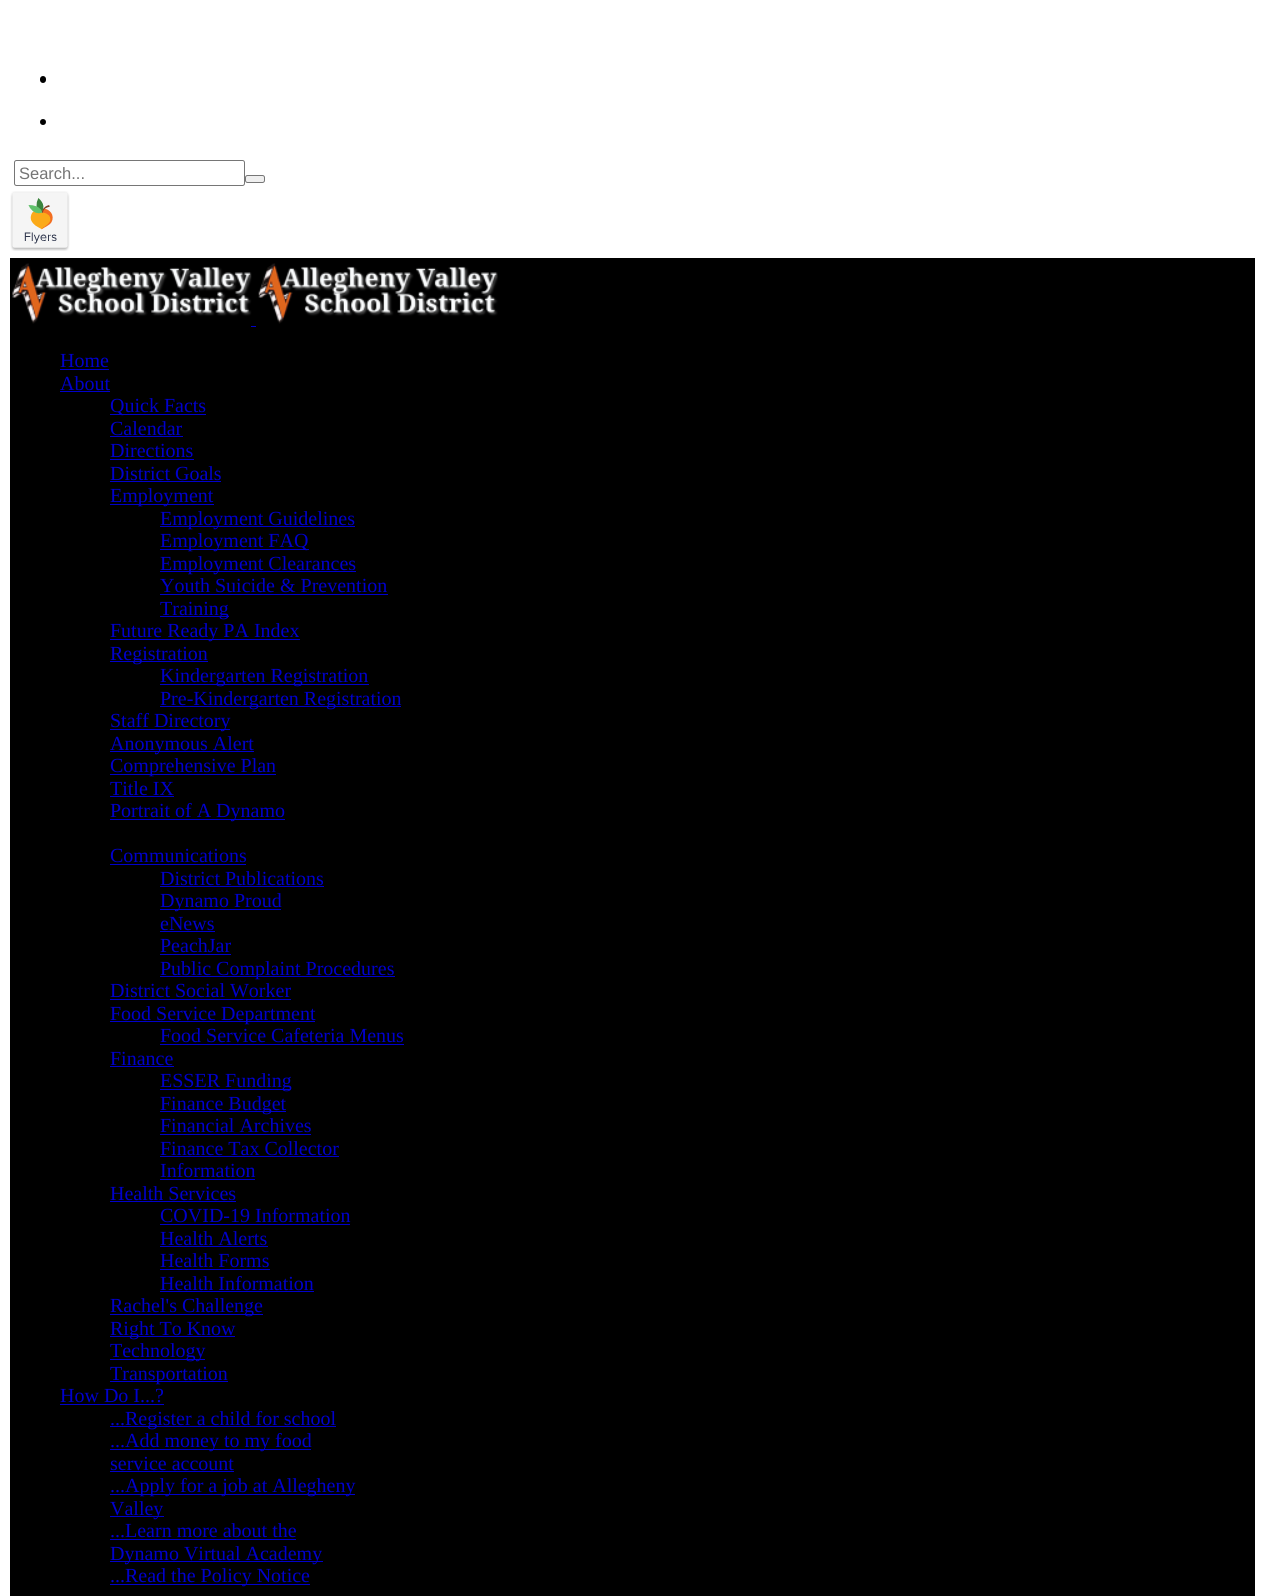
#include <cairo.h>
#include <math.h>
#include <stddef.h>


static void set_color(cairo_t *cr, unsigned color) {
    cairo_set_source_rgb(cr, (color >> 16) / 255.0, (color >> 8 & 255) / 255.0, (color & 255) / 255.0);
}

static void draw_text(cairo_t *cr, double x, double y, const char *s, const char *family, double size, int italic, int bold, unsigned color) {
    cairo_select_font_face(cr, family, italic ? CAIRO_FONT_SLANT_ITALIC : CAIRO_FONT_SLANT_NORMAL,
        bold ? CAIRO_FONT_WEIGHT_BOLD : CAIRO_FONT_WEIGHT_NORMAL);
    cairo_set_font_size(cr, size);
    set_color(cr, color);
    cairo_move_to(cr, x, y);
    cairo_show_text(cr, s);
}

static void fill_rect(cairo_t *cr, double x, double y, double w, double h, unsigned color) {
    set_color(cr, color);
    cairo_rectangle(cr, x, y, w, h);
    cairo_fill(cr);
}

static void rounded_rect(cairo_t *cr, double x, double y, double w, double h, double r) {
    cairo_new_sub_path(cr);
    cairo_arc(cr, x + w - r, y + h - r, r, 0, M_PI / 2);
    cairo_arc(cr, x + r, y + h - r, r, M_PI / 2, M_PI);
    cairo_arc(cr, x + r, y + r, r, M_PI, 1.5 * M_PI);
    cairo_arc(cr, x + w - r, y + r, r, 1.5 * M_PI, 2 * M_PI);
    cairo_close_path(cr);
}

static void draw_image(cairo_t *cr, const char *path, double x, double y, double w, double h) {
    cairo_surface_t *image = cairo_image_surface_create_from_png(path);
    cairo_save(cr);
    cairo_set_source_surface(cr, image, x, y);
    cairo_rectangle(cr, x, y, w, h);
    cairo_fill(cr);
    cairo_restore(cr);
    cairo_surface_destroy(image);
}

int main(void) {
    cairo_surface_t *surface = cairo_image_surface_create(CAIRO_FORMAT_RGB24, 1264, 1596);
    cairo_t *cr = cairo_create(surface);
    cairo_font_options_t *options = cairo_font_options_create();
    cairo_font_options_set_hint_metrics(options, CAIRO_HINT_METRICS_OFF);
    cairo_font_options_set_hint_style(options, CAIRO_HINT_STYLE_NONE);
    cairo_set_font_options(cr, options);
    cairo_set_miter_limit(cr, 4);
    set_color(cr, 0xFFFFFF);
    cairo_paint(cr);
    set_color(cr, 0x000000);
    rounded_rect(cr, 40, 76, 6, 7, 3);
    cairo_fill(cr);
    cairo_arc(cr, 43, 122, 3, 0, 2 * M_PI);
    cairo_fill(cr);
    rounded_rect(cr, 14.5, 160.5, 230, 25, 2);
    set_color(cr, 0x767676);
    cairo_set_line_width(cr, 1);
    cairo_stroke(cr);
    draw_text(cr, 19, 179, "Search...", "Liberation Sans", 16.5, 0, 0, 0x757575);
    set_color(cr, 0xEFEFEF);
    rounded_rect(cr, 245.5, 175.5, 19, 7, 2);
    cairo_fill_preserve(cr);
    set_color(cr, 0x767676);
    cairo_stroke(cr);
    draw_image(cr, "assets/img1.png", 10, 191, 60, 60);
    fill_rect(cr, 10, 258, 1245, 1338, 0x000000);
    draw_image(cr, "assets/img2.png", 12, 263, 240, 61);
    draw_image(cr, "assets/img3.png", 258, 263, 240, 61);
    fill_rect(cr, 251, 326, 5, 1, 0x0000CC);
    draw_text(cr, 60, 367, "Home", "Liberation Serif", 20, 0, 0, 0x0000CC);
    fill_rect(cr, 60, 369, 49, 1, 0x0000CC);
    draw_text(cr, 60, 390, "About", "Liberation Serif", 20, 0, 0, 0x0000CC);
    fill_rect(cr, 60, 391, 50, 1, 0x0000CC);
    fill_rect(cr, 110, 414, 96, 1, 0x0000CC);
    draw_text(cr, 110, 412, "Quick Facts", "Liberation Serif", 20, 0, 0, 0x0000CC);
    draw_text(cr, 110, 435, "Calendar", "Liberation Serif", 20, 0, 0, 0x0000CC);
    fill_rect(cr, 110, 436, 73, 1, 0x0000CC);
    draw_text(cr, 110, 457, "Directions", "Liberation Serif", 20, 0, 0, 0x0000CC);
    fill_rect(cr, 110, 459, 84, 1, 0x0000CC);
    draw_text(cr, 110, 480, "District Goals", "Liberation Serif", 20, 0, 0, 0x0000CC);
    fill_rect(cr, 110, 481, 111, 1, 0x0000CC);
    fill_rect(cr, 110, 504, 104, 1, 0x0000CC);
    draw_text(cr, 110, 502, "Employment", "Liberation Serif", 20, 0, 0, 0x0000CC);
    fill_rect(cr, 160, 526, 195, 1, 0x0000CC);
    draw_text(cr, 160, 525, "Employment Guidelines", "Liberation Serif", 20, 0, 0, 0x0000CC);
    fill_rect(cr, 160, 549, 149, 1, 0x0000CC);
    draw_text(cr, 160, 547, "Employment FAQ", "Liberation Serif", 20, 0, 0, 0x0000CC);
    fill_rect(cr, 160, 571, 196, 1, 0x0000CC);
    draw_text(cr, 160, 570, "Employment Clearances", "Liberation Serif", 20, 0, 0, 0x0000CC);
    draw_text(cr, 160, 592, "Youth Suicide & Prevention", "Liberation Serif", 20, 0, 0, 0x0000CC);
    fill_rect(cr, 160, 594, 228, 1, 0x0000CC);
    fill_rect(cr, 160, 616, 69, 1, 0x0000CC);
    draw_text(cr, 160, 615, "Training", "Liberation Serif", 20, 0, 0, 0x0000CC);
    fill_rect(cr, 110, 639, 190, 1, 0x0000CC);
    draw_text(cr, 110, 637, "Future Ready PA Index", "Liberation Serif", 20, 0, 0, 0x0000CC);
    fill_rect(cr, 110, 661, 98, 1, 0x0000CC);
    draw_text(cr, 110, 660, "Registration", "Liberation Serif", 20, 0, 0, 0x0000CC);
    fill_rect(cr, 160, 684, 209, 1, 0x0000CC);
    draw_text(cr, 160, 682, "Kindergarten Registration", "Liberation Serif", 20, 0, 0, 0x0000CC);
    fill_rect(cr, 160, 706, 241, 1, 0x0000CC);
    draw_text(cr, 160, 705, "Pre-Kindergarten Registration", "Liberation Serif", 20, 0, 0, 0x0000CC);
    fill_rect(cr, 110, 729, 120, 1, 0x0000CC);
    draw_text(cr, 110, 727, "Staff Directory", "Liberation Serif", 20, 0, 0, 0x0000CC);
    fill_rect(cr, 110, 751, 144, 1, 0x0000CC);
    draw_text(cr, 110, 750, "Anonymous Alert", "Liberation Serif", 20, 0, 0, 0x0000CC);
    fill_rect(cr, 110, 774, 166, 1, 0x0000CC);
    draw_text(cr, 110, 772, "Comprehensive Plan", "Liberation Serif", 20, 0, 0, 0x0000CC);
    draw_text(cr, 110, 795, "Title IX", "Liberation Serif", 20, 0, 0, 0x0000CC);
    fill_rect(cr, 110, 796, 64, 1, 0x0000CC);
    fill_rect(cr, 110, 819, 175, 1, 0x0000CC);
    draw_text(cr, 110, 817, "Portrait of A Dynamo", "Liberation Serif", 20, 0, 0, 0x0000CC);
    draw_text(cr, 110, 862, "Communications", "Liberation Serif", 20, 0, 0, 0x0000CC);
    fill_rect(cr, 110, 864, 136, 1, 0x0000CC);
    draw_text(cr, 160, 885, "District Publications", "Liberation Serif", 20, 0, 0, 0x0000CC);
    fill_rect(cr, 160, 886, 164, 1, 0x0000CC);
    fill_rect(cr, 160, 909, 121, 1, 0x0000CC);
    draw_text(cr, 160, 907, "Dynamo Proud", "Liberation Serif", 20, 0, 0, 0x0000CC);
    draw_text(cr, 160, 930, "eNews", "Liberation Serif", 20, 0, 0, 0x0000CC);
    fill_rect(cr, 160, 931, 55, 1, 0x0000CC);
    draw_text(cr, 160, 952, "PeachJar", "Liberation Serif", 20, 0, 0, 0x0000CC);
    fill_rect(cr, 160, 954, 71, 1, 0x0000CC);
    fill_rect(cr, 160, 976, 235, 1, 0x0000CC);
    draw_text(cr, 160, 975, "Public Complaint Procedures", "Liberation Serif", 20, 0, 0, 0x0000CC);
    draw_text(cr, 110, 997, "District Social Worker", "Liberation Serif", 20, 0, 0, 0x0000CC);
    fill_rect(cr, 110, 999, 181, 1, 0x0000CC);
    fill_rect(cr, 110, 1021, 205, 1, 0x0000CC);
    draw_text(cr, 110, 1020, "Food Service Department", "Liberation Serif", 20, 0, 0, 0x0000CC);
    draw_text(cr, 160, 1042, "Food Service Cafeteria Menus", "Liberation Serif", 20, 0, 0, 0x0000CC);
    fill_rect(cr, 160, 1044, 244, 1, 0x0000CC);
    draw_text(cr, 110, 1065, "Finance", "Liberation Serif", 20, 0, 0, 0x0000CC);
    fill_rect(cr, 110, 1066, 64, 1, 0x0000CC);
    fill_rect(cr, 160, 1089, 131, 1, 0x0000CC);
    draw_text(cr, 160, 1087, "ESSER Funding", "Liberation Serif", 20, 0, 0, 0x0000CC);
    fill_rect(cr, 160, 1111, 126, 1, 0x0000CC);
    draw_text(cr, 160, 1110, "Finance Budget", "Liberation Serif", 20, 0, 0, 0x0000CC);
    draw_text(cr, 160, 1132, "Financial Archives", "Liberation Serif", 20, 0, 0, 0x0000CC);
    fill_rect(cr, 160, 1134, 151, 1, 0x0000CC);
    draw_text(cr, 160, 1155, "Finance Tax Collector", "Liberation Serif", 20, 0, 0, 0x0000CC);
    fill_rect(cr, 160, 1156, 179, 1, 0x0000CC);
    draw_text(cr, 160, 1177, "Information", "Liberation Serif", 20, 0, 0, 0x0000CC);
    fill_rect(cr, 160, 1179, 95, 1, 0x0000CC);
    draw_text(cr, 110, 1200, "Health Services", "Liberation Serif", 20, 0, 0, 0x0000CC);
    fill_rect(cr, 110, 1201, 126, 1, 0x0000CC);
    draw_text(cr, 160, 1222, "COVID-19 Information", "Liberation Serif", 20, 0, 0, 0x0000CC);
    fill_rect(cr, 160, 1224, 190, 1, 0x0000CC);
    draw_text(cr, 160, 1245, "Health Alerts", "Liberation Serif", 20, 0, 0, 0x0000CC);
    fill_rect(cr, 160, 1246, 108, 1, 0x0000CC);
    draw_text(cr, 160, 1267, "Health Forms", "Liberation Serif", 20, 0, 0, 0x0000CC);
    fill_rect(cr, 160, 1269, 110, 1, 0x0000CC);
    draw_text(cr, 160, 1290, "Health Information", "Liberation Serif", 20, 0, 0, 0x0000CC);
    fill_rect(cr, 160, 1291, 154, 1, 0x0000CC);
    fill_rect(cr, 110, 1314, 153, 1, 0x0000CC);
    draw_text(cr, 110, 1312, "Rachel's Challenge", "Liberation Serif", 20, 0, 0, 0x0000CC);
    fill_rect(cr, 110, 1336, 125, 1, 0x0000CC);
    draw_text(cr, 110, 1335, "Right To Know", "Liberation Serif", 20, 0, 0, 0x0000CC);
    fill_rect(cr, 110, 1359, 95, 1, 0x0000CC);
    draw_text(cr, 110, 1357, "Technology", "Liberation Serif", 20, 0, 0, 0x0000CC);
    fill_rect(cr, 110, 1381, 118, 1, 0x0000CC);
    draw_text(cr, 110, 1380, "Transportation", "Liberation Serif", 20, 0, 0, 0x0000CC);
    draw_text(cr, 60, 1402, "How Do I...?", "Liberation Serif", 20, 0, 0, 0x0000CC);
    fill_rect(cr, 60, 1404, 104, 1, 0x0000CC);
    fill_rect(cr, 110, 1426, 226, 1, 0x0000CC);
    draw_text(cr, 110, 1425, "...Register a child for school", "Liberation Serif", 20, 0, 0, 0x0000CC);
    fill_rect(cr, 110, 1449, 201, 1, 0x0000CC);
    draw_text(cr, 110, 1447, "...Add money to my food", "Liberation Serif", 20, 0, 0, 0x0000CC);
    draw_text(cr, 110, 1470, "service account", "Liberation Serif", 20, 0, 0, 0x0000CC);
    fill_rect(cr, 110, 1471, 124, 1, 0x0000CC);
    fill_rect(cr, 110, 1494, 245, 1, 0x0000CC);
    draw_text(cr, 110, 1492, "...Apply for a job at Allegheny", "Liberation Serif", 20, 0, 0, 0x0000CC);
    fill_rect(cr, 110, 1516, 54, 1, 0x0000CC);
    draw_text(cr, 110, 1515, "Valley", "Liberation Serif", 20, 0, 0, 0x0000CC);
    draw_text(cr, 110, 1537, "...Learn more about the", "Liberation Serif", 20, 0, 0, 0x0000CC);
    fill_rect(cr, 110, 1539, 186, 1, 0x0000CC);
    fill_rect(cr, 110, 1561, 213, 1, 0x0000CC);
    draw_text(cr, 110, 1560, "Dynamo Virtual Academy", "Liberation Serif", 20, 0, 0, 0x0000CC);
    fill_rect(cr, 110, 1584, 200, 1, 0x0000CC);
    draw_text(cr, 110, 1582, "...Read the Policy Notice", "Liberation Serif", 20, 0, 0, 0x0000CC);
    cairo_surface_write_to_png(surface, "output.png");
    cairo_font_options_destroy(options);
    cairo_destroy(cr);
    cairo_surface_destroy(surface);
    return 0;
}
